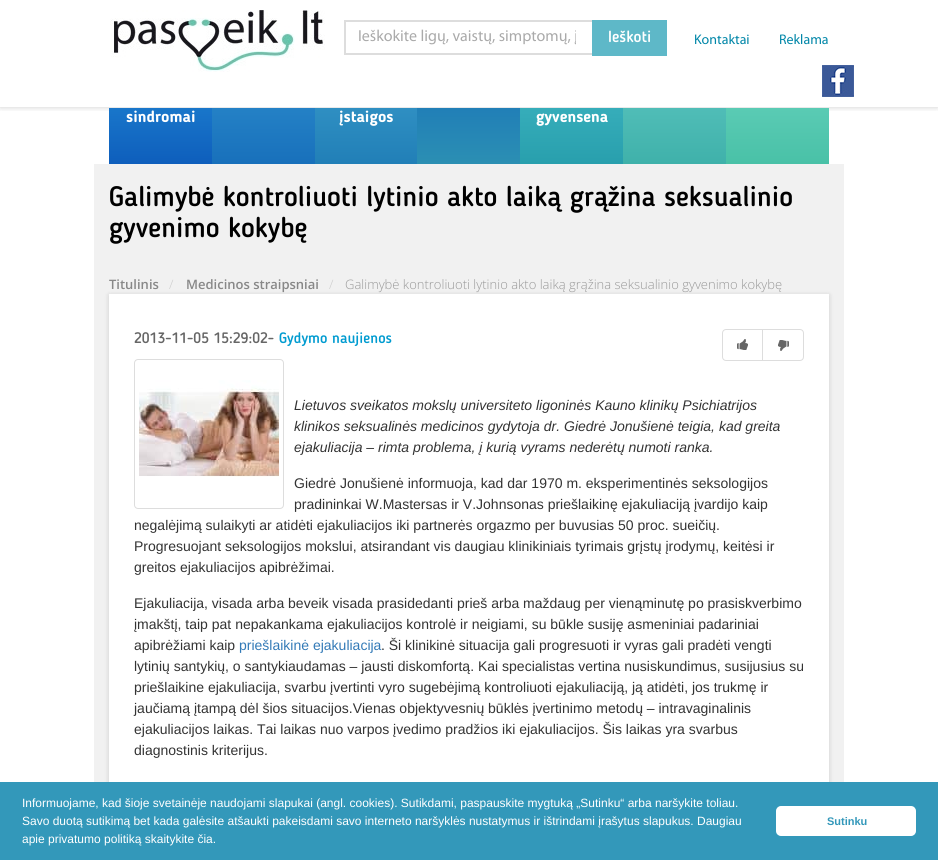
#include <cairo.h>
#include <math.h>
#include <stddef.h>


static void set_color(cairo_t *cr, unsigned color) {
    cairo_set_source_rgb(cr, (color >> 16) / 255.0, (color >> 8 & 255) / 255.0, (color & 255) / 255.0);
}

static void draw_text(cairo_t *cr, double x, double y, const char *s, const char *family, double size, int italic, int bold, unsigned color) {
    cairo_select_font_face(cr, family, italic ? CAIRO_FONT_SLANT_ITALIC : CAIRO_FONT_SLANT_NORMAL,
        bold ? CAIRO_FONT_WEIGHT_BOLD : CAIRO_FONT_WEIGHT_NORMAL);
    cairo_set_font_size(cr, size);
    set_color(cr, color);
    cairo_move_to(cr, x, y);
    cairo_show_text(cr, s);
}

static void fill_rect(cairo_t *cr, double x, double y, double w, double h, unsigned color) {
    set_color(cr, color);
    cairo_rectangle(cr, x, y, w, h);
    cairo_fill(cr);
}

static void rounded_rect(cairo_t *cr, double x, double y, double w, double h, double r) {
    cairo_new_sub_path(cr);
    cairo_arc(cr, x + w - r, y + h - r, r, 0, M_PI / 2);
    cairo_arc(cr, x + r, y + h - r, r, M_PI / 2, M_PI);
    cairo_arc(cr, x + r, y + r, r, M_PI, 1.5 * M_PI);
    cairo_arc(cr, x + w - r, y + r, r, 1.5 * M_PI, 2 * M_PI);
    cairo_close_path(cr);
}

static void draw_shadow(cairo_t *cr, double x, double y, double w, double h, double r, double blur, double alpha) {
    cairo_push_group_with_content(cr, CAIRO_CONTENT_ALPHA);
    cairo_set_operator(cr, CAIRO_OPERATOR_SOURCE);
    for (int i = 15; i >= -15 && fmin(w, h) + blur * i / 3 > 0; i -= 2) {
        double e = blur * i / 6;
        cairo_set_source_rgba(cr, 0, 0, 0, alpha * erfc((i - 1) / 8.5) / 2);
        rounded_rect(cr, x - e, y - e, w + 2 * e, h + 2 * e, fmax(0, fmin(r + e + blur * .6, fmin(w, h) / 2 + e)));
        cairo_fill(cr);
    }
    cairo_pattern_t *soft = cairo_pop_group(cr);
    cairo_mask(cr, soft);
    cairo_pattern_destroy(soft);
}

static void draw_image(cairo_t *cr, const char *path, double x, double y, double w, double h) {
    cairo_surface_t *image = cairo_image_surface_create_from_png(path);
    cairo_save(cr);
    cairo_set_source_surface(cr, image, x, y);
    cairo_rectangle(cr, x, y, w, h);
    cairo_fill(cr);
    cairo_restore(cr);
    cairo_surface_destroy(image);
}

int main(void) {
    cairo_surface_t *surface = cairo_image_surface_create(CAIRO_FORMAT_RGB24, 938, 860);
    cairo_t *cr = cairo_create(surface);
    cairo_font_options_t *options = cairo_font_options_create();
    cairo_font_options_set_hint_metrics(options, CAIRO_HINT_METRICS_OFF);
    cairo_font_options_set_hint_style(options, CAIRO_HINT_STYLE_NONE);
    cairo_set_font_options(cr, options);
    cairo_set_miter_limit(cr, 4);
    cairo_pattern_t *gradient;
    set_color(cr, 0xFFFFFF);
    cairo_paint(cr);
    cairo_save(cr);
    cairo_rectangle(cr, 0, 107, 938, 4);
    cairo_clip(cr);
    set_color(cr, 0x000000);
    draw_shadow(cr, 0, 1, 938, 107, 0, 2.5, 0.15);
    cairo_restore(cr);
    draw_image(cr, "assets/img1.png", 110, 10, 215, 62);
    cairo_rectangle(cr, 345, 21, 248, 33);
    set_color(cr, 0xDDDDDD);
    cairo_stroke(cr);
    cairo_save(cr);
    cairo_rectangle(cr, 358, 28, 218, 19);
    cairo_clip(cr);
    draw_text(cr, 358, 41, "Ieškokite ligų, vaistų, simptomų, į", "Myriad", 16, 0, 0, 0xAAAAAA);
    cairo_restore(cr);
    fill_rect(cr, 592, 20, 75, 36, 0x5EB8C8);
    draw_text(cr, 608, 42, "Ieškoti", "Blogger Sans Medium", 16, 0, 0, 0xFFFFFF);
    draw_text(cr, 694, 44, "Kontaktai", "Myriad", 14, 0, 0, 0x0086A8);
    draw_text(cr, 779, 44, "Reklama", "Myriad", 14, 0, 0, 0x0086A8);
    draw_image(cr, "assets/img2.png", 822, 65, 32, 32);
    gradient = cairo_pattern_create_linear(161, 108, 161, 164);
    cairo_pattern_add_color_stop_rgba(gradient, 0, 0.098, 0.463, 0.792, 1);
    cairo_pattern_add_color_stop_rgba(gradient, 1, 0.055, 0.369, 0.737, 1);
    cairo_set_source(cr, gradient);
    cairo_pattern_destroy(gradient);
    cairo_rectangle(cr, 109, 108, 103, 56);
    cairo_fill(cr);
    draw_text(cr, 126, 122, "sindromai", "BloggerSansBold", 16, 0, 1, 0xFFFFFF);
    gradient = cairo_pattern_create_linear(264, 108, 264, 164);
    cairo_pattern_add_color_stop_rgba(gradient, 0, 0.141, 0.506, 0.776, 1);
    cairo_pattern_add_color_stop_rgba(gradient, 1, 0.094, 0.439, 0.733, 1);
    cairo_set_source(cr, gradient);
    cairo_pattern_destroy(gradient);
    cairo_rectangle(cr, 212, 108, 103, 56);
    cairo_fill(cr);
    gradient = cairo_pattern_create_linear(366, 108, 366, 164);
    cairo_pattern_add_color_stop_rgba(gradient, 0, 0.184, 0.561, 0.761, 1);
    cairo_pattern_add_color_stop_rgba(gradient, 1, 0.129, 0.498, 0.718, 1);
    cairo_set_source(cr, gradient);
    cairo_pattern_destroy(gradient);
    cairo_rectangle(cr, 315, 108, 102, 56);
    cairo_fill(cr);
    draw_text(cr, 339, 122, "įstaigos", "BloggerSansBold", 16, 0, 1, 0xFFFFFF);
    gradient = cairo_pattern_create_linear(469, 108, 469, 164);
    cairo_pattern_add_color_stop_rgba(gradient, 0, 0.129, 0.498, 0.718, 1);
    cairo_pattern_add_color_stop_rgba(gradient, 1, 0.169, 0.561, 0.702, 1);
    cairo_set_source(cr, gradient);
    cairo_pattern_destroy(gradient);
    cairo_rectangle(cr, 417, 108, 103, 56);
    cairo_fill(cr);
    gradient = cairo_pattern_create_linear(572, 108, 572, 164);
    cairo_pattern_add_color_stop_rgba(gradient, 0, 0.212, 0.678, 0.729, 1);
    cairo_pattern_add_color_stop_rgba(gradient, 1, 0.157, 0.624, 0.678, 1);
    cairo_set_source(cr, gradient);
    cairo_pattern_destroy(gradient);
    cairo_rectangle(cr, 520, 108, 103, 56);
    cairo_fill(cr);
    draw_text(cr, 536, 122, "gyvensena", "BloggerSansBold", 16, 0, 1, 0xFFFFFF);
    gradient = cairo_pattern_create_linear(675, 108, 675, 164);
    cairo_pattern_add_color_stop_rgba(gradient, 0, 0.314, 0.741, 0.718, 1);
    cairo_pattern_add_color_stop_rgba(gradient, 1, 0.247, 0.694, 0.667, 1);
    cairo_set_source(cr, gradient);
    cairo_pattern_destroy(gradient);
    cairo_rectangle(cr, 623, 108, 103, 56);
    cairo_fill(cr);
    gradient = cairo_pattern_create_linear(778, 108, 778, 164);
    cairo_pattern_add_color_stop_rgba(gradient, 0, 0.353, 0.796, 0.706, 1);
    cairo_pattern_add_color_stop_rgba(gradient, 1, 0.286, 0.757, 0.655, 1);
    cairo_set_source(cr, gradient);
    cairo_pattern_destroy(gradient);
    cairo_rectangle(cr, 726, 108, 103, 56);
    cairo_fill(cr);
    fill_rect(cr, 94, 164, 750, 618, 0xF1F1F1);
    draw_text(cr, 109, 206, "Galimybė kontroliuoti lytinio akto laiką grąžina seksualinio", "Blogger Sans Medium", 28, 0, 0, 0x000000);
    draw_text(cr, 109, 237, "gyvenimo kokybę", "Blogger Sans Medium", 28, 0, 0, 0x000000);
    draw_text(cr, 109, 289, "Titulinis", "Open Sans SemiBold", 13, 0, 0, 0x888888);
    draw_text(cr, 169, 289, "/", "Open Sans Light", 13, 0, 0, 0xCCCCCC);
    draw_text(cr, 186, 289, "Medicinos straipsniai", "Open Sans SemiBold", 13, 0, 0, 0x888888);
    draw_text(cr, 329, 289, "/", "Open Sans Light", 13, 0, 0, 0xCCCCCC);
    draw_text(cr, 345, 289, "Galimybė kontroliuoti lytinio akto laiką grąžina seksualinio gyvenimo kokybę", "Open Sans Light", 13, 0, 0, 0x999999);
    set_color(cr, 0x000000);
    draw_shadow(cr, 109, 295, 720, 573, 0, 2.5, 0.15);
    fill_rect(cr, 109, 294, 720, 488, 0xFFFFFF);
    draw_text(cr, 134, 343, "2013-11-05 15:29:02-", "Blogger Sans Medium", 15, 0, 0, 0x666666);
    draw_text(cr, 279, 343, "Gydymo naujienos", "Blogger Sans Medium", 15, 0, 0, 0x009BD0);
    rounded_rect(cr, 722.5, 329.5, 81, 31, 3.5);
    set_color(cr, 0xDDDDDD);
    cairo_set_line_width(cr, 1);
    cairo_stroke(cr);
    fill_rect(cr, 762, 330, 1, 30, 0xDDDDDD);
    draw_image(cr, "assets/img3.png", 737, 339, 11, 11);
    draw_image(cr, "assets/img4.png", 778, 340, 11, 11);
    rounded_rect(cr, 134.5, 359.5, 149, 149, 3.5);
    cairo_stroke(cr);
    draw_image(cr, "assets/img5.png", 139, 380, 140, 97);
    draw_text(cr, 294, 410, "Lietuvos sveikatos mokslų universiteto ligoninės Kauno klinikų Psichiatrijos", "Liberation Sans", 14, 1, 0, 0x333333);
    draw_text(cr, 294, 431, "klinikos seksualinės medicinos gydytoja dr. Giedrė Jonušienė teigia, kad greita", "Liberation Sans", 14, 1, 0, 0x333333);
    draw_text(cr, 294, 452, "ejakuliacija – rimta problema, į kurią vyrams nederėtų numoti ranka.", "Liberation Sans", 14, 1, 0, 0x333333);
    draw_text(cr, 294, 488, "Giedrė Jonušienė informuoja, kad dar 1970 m. eksperimentinės seksologijos", "Liberation Sans", 14, 0, 0, 0x333333);
    draw_text(cr, 294, 509, "pradininkai W.Mastersas ir V.Johnsonas priešlaikinę ejakuliaciją įvardijo kaip", "Liberation Sans", 14, 0, 0, 0x333333);
    draw_text(cr, 134, 530, "negalėjimą sulaikyti ar atidėti ejakuliacijos iki partnerės orgazmo per buvusias 50 proc. sueičių.", "Liberation Sans", 14, 0, 0, 0x333333);
    draw_text(cr, 134, 551, "Progresuojant seksologijos mokslui, atsirandant vis daugiau klinikiniais tyrimais grįstų įrodymų, keitėsi ir", "Liberation Sans", 14, 0, 0, 0x333333);
    draw_text(cr, 134, 572, "greitos ejakuliacijos apibrėžimai.", "Liberation Sans", 14, 0, 0, 0x333333);
    draw_text(cr, 134, 608, "Ejakuliacija, visada arba beveik visada prasidedanti prieš arba maždaug per vienąminutę po prasiskverbimo", "Liberation Sans", 14, 0, 0, 0x333333);
    draw_text(cr, 134, 629, "įmakštį, taip pat nepakankama ejakuliacijos kontrolė ir neigiami, su būkle susiję asmeniniai padariniai", "Liberation Sans", 14, 0, 0, 0x333333);
    draw_text(cr, 134, 650, "apibrėžiami kaip", "Liberation Sans", 14, 0, 0, 0x333333);
    draw_text(cr, 239, 650, "priešlaikinė ejakuliacija", "Liberation Sans", 14, 0, 0, 0x337AB7);
    draw_text(cr, 381, 650, ". Ši klinikinė situacija gali progresuoti ir vyras gali pradėti vengti", "Liberation Sans", 14, 0, 0, 0x333333);
    draw_text(cr, 134, 671, "lytinių santykių, o santykiaudamas – jausti diskomfortą. Kai specialistas vertina nusiskundimus, susijusius su", "Liberation Sans", 14, 0, 0, 0x333333);
    draw_text(cr, 134, 692, "priešlaikine ejakuliacija, svarbu įvertinti vyro sugebėjimą kontroliuoti ejakuliaciją, ją atidėti, jos trukmę ir", "Liberation Sans", 14, 0, 0, 0x333333);
    draw_text(cr, 134, 713, "jaučiamą įtampą dėl šios situacijos.Vienas objektyvesnių būklės įvertinimo metodų – intravaginalinis", "Liberation Sans", 14, 0, 0, 0x333333);
    draw_text(cr, 134, 734, "ejakuliacijos laikas. Tai laikas nuo varpos įvedimo pradžios iki ejakuliacijos. Šis laikas yra svarbus", "Liberation Sans", 14, 0, 0, 0x333333);
    draw_text(cr, 134, 755, "diagnostinis kriterijus.", "Liberation Sans", 14, 0, 0, 0x333333);
    fill_rect(cr, 0, 782, 938, 78, 0x3398BA);
    draw_text(cr, 22, 807, "Informuojame, kad šioje svetainėje naudojami slapukai (angl. cookies). Sutikdami, paspauskite mygtuką „Sutinku“ arba naršykite toliau.", "Liberation Sans", 12, 0, 0, 0xFFFFFF);
    draw_text(cr, 22, 825, "Savo duotą sutikimą bet kada galėsite atšaukti pakeisdami savo interneto naršyklės nustatymus ir ištrindami įrašytus slapukus. Daugiau", "Liberation Sans", 12, 0, 0, 0xFFFFFF);
    draw_text(cr, 22, 843, "apie privatumo politiką skaitykite čia.", "Liberation Sans", 12, 0, 0, 0xFFFFFF);
    rounded_rect(cr, 777, 807, 138, 28, 4);
    cairo_fill_preserve(cr);
    cairo_set_line_width(cr, 2);
    cairo_stroke(cr);
    draw_text(cr, 827, 825, "Sutinku", "Liberation Sans", 11, 0, 1, 0x3398BA);
    cairo_surface_write_to_png(surface, "output.png");
    cairo_font_options_destroy(options);
    cairo_destroy(cr);
    cairo_surface_destroy(surface);
    return 0;
}
